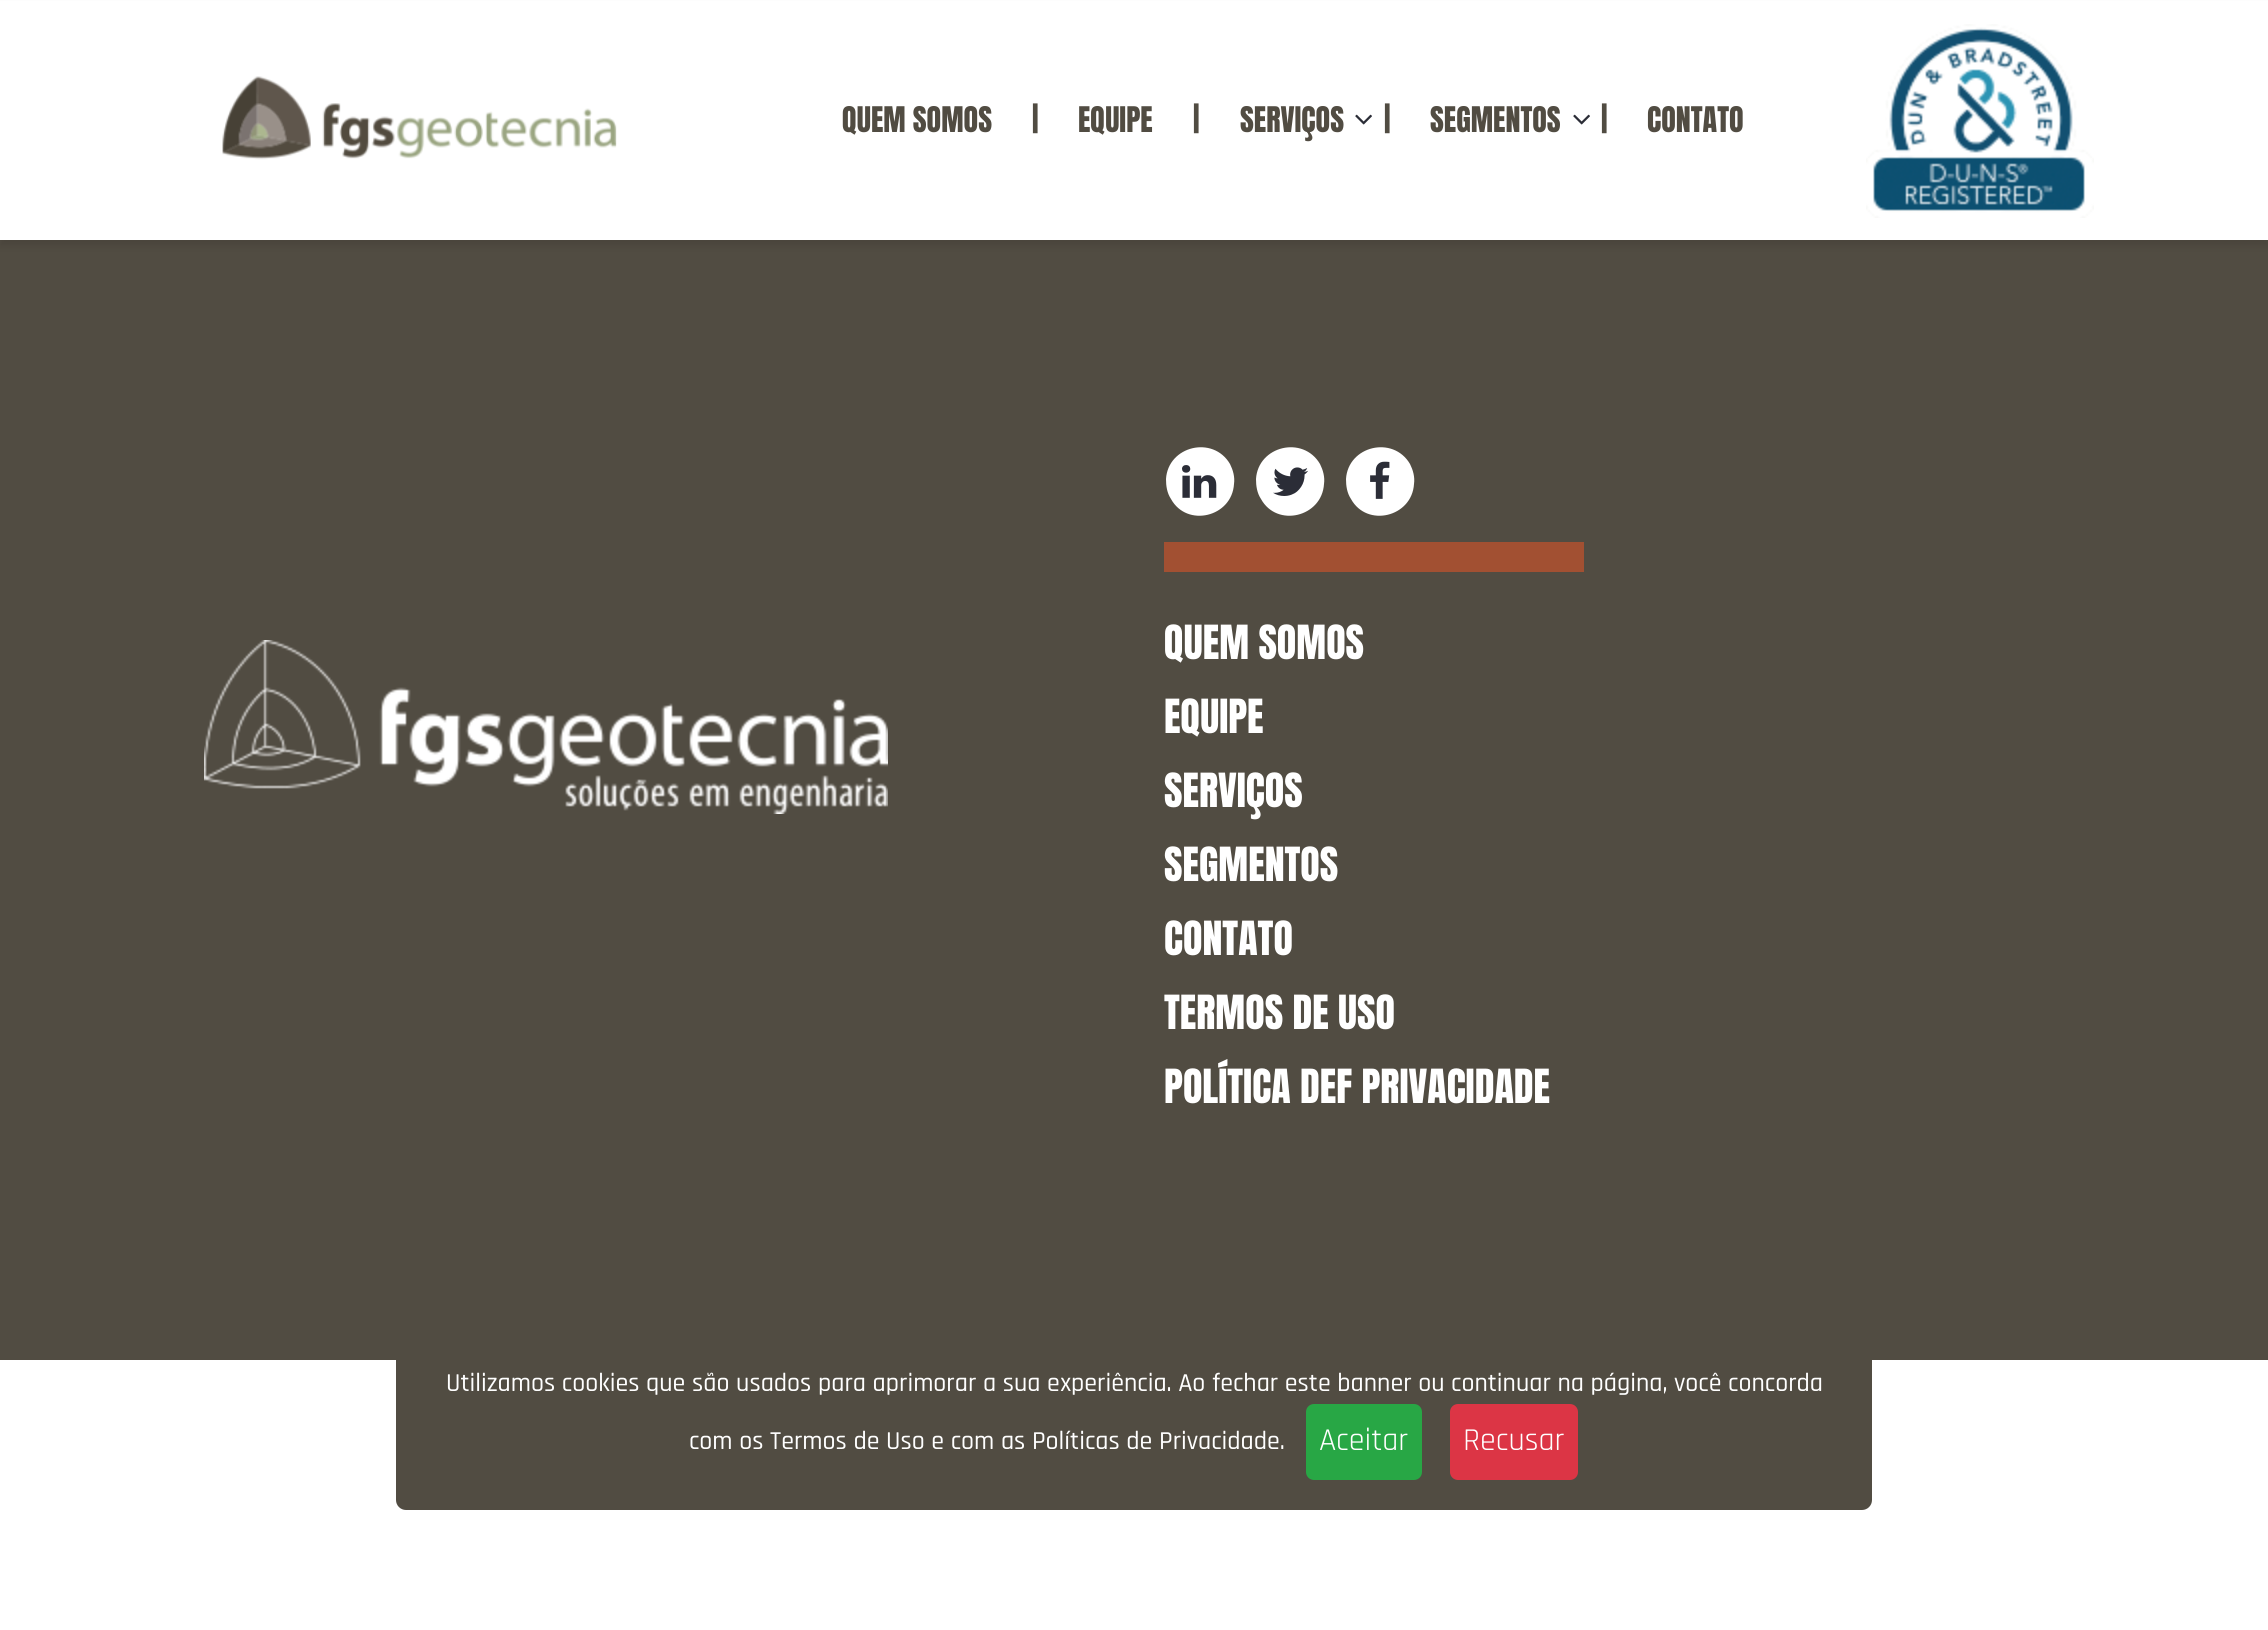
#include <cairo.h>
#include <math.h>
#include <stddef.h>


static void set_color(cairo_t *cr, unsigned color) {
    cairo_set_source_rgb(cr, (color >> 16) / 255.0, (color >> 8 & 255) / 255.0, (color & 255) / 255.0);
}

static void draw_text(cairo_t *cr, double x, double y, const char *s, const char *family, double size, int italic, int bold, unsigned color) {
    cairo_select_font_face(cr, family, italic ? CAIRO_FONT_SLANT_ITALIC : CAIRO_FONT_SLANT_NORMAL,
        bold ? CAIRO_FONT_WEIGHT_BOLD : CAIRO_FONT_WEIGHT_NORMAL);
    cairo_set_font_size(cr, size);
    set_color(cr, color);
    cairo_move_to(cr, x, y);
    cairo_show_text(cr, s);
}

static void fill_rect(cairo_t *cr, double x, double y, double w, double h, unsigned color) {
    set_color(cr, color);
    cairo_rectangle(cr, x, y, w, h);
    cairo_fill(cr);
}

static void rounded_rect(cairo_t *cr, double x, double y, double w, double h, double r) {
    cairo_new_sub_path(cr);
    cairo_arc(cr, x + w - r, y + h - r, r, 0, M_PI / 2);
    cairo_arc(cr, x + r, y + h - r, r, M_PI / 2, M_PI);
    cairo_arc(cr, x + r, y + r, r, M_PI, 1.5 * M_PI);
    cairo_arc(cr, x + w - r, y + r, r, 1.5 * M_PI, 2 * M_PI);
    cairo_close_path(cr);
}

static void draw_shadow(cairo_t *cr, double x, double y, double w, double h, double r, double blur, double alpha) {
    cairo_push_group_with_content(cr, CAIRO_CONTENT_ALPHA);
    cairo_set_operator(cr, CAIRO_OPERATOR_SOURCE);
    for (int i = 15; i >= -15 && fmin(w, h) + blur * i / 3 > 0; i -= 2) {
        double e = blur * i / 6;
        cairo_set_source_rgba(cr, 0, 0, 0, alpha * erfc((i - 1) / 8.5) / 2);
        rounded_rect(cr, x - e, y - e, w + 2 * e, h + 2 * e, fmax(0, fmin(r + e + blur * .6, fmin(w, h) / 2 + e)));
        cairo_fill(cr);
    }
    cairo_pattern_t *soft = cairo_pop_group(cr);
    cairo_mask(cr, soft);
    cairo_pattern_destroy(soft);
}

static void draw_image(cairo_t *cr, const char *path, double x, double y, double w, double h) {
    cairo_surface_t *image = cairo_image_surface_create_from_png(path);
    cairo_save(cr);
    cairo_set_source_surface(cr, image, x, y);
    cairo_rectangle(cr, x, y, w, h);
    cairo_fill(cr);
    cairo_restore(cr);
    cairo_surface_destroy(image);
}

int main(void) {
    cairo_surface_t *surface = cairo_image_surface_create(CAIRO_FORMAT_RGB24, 2268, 1630);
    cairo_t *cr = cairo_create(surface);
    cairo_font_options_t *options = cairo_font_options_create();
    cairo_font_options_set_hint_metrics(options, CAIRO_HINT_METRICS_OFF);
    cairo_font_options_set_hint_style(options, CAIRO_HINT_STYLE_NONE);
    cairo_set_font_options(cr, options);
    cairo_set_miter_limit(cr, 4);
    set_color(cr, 0xFFFFFF);
    cairo_paint(cr);
    fill_rect(cr, 0, 240, 2268, 1120, 0x514C42);
    set_color(cr, 0x000000);
    draw_shadow(cr, 0, 6, 2268, 240, 0, 4, 0.1);
    fill_rect(cr, 0, 1, 2268, 239, 0xFFFFFF);
    draw_image(cr, "assets/img1.png", 222, 76, 395, 84);
    draw_text(cr, 842, 132, "QUEM SOMOS", "Anton", 30, 0, 0, 0x514C42);
    draw_text(cr, 1032, 132, "|", "Anton", 30, 0, 0, 0x514C42);
    draw_text(cr, 1078, 132, "EQUIPE", "Anton", 30, 0, 0, 0x514C42);
    draw_text(cr, 1193, 132, "|", "Anton", 30, 0, 0, 0x514C42);
    draw_text(cr, 1240, 132, "SERVIÇOS", "Anton", 30, 0, 0, 0x514C42);
    draw_image(cr, "assets/img2.png", 1355, 114, 17, 11);
    draw_text(cr, 1384, 132, "|", "Anton", 30, 0, 0, 0x514C42);
    draw_text(cr, 1430, 132, "SEGMENTOS", "Anton", 30, 0, 0, 0x514C42);
    draw_image(cr, "assets/img2.png", 1573, 114, 17, 11);
    draw_text(cr, 1601, 132, "|", "Anton", 30, 0, 0, 0x514C42);
    draw_text(cr, 1647, 132, "CONTATO", "Anton", 30, 0, 0, 0x514C42);
    draw_image(cr, "assets/img3.png", 1866, 24, 228, 194);
    draw_image(cr, "assets/img4.png", 204, 640, 684, 174);
    fill_rect(cr, 1164, 542, 420, 30, 0xA25032);
    set_color(cr, 0xFFFFFF);
    cairo_new_path(cr);
    cairo_move_to(cr, 1230, 464);
    cairo_curve_to(cr, 1233, 470, 1235, 477, 1234, 484);
    cairo_curve_to(cr, 1232, 517, 1187, 528, 1171, 499);
    cairo_curve_to(cr, 1167, 493, 1166, 486, 1166, 479);
    cairo_curve_to(cr, 1168, 446, 1213, 435, 1230, 464);
    cairo_close_path(cr);
    cairo_fill(cr);
    draw_image(cr, "assets/img5.png", 1182, 465, 35, 33);
    cairo_new_path(cr);
    cairo_move_to(cr, 1320, 464);
    cairo_curve_to(cr, 1323, 470, 1325, 477, 1324, 484);
    cairo_curve_to(cr, 1322, 517, 1277, 528, 1261, 499);
    cairo_curve_to(cr, 1257, 493, 1256, 486, 1256, 479);
    cairo_curve_to(cr, 1258, 446, 1303, 435, 1320, 464);
    cairo_close_path(cr);
    cairo_fill(cr);
    draw_image(cr, "assets/img6.png", 1273, 467, 35, 29);
    cairo_new_path(cr);
    cairo_move_to(cr, 1410, 464);
    cairo_curve_to(cr, 1413, 470, 1415, 477, 1414, 484);
    cairo_curve_to(cr, 1412, 517, 1367, 528, 1351, 499);
    cairo_curve_to(cr, 1347, 493, 1346, 486, 1346, 479);
    cairo_curve_to(cr, 1348, 446, 1393, 435, 1410, 464);
    cairo_close_path(cr);
    cairo_fill(cr);
    draw_image(cr, "assets/img7.png", 1370, 461, 20, 38);
    draw_text(cr, 1164, 659, "QUEM SOMOS", "Anton", 40, 0, 0, 0xFFFFFF);
    draw_text(cr, 1164, 733, "EQUIPE", "Anton", 40, 0, 0, 0xFFFFFF);
    draw_text(cr, 1164, 807, "SERVIÇOS", "Anton", 40, 0, 0, 0xFFFFFF);
    draw_text(cr, 1164, 881, "SEGMENTOS", "Anton", 40, 0, 0, 0xFFFFFF);
    draw_text(cr, 1164, 955, "CONTATO", "Anton", 40, 0, 0, 0xFFFFFF);
    draw_text(cr, 1164, 1029, "TERMOS DE USO", "Anton", 40, 0, 0, 0xFFFFFF);
    draw_text(cr, 1164, 1103, "POLÍTICA DEF PRIVACIDADE", "Anton", 40, 0, 0, 0xFFFFFF);
    set_color(cr, 0x514C42);
    rounded_rect(cr, 396, 1336, 1476, 174, 10);
    cairo_fill(cr);
    draw_text(cr, 446, 1391, "Utilizamos cookies que são usados para aprimorar a sua experiência. Ao fechar este banner ou continuar na página, você concorda", "Rajdhani Medium", 26, 0, 0, 0xFFFFFF);
    draw_text(cr, 689, 1449, "com os Termos de Uso e com as Políticas de Privacidade.", "Rajdhani Medium", 26, 0, 0, 0xFFFFFF);
    set_color(cr, 0x28A745);
    rounded_rect(cr, 1307, 1405, 114, 74, 7);
    cairo_fill_preserve(cr);
    cairo_stroke(cr);
    draw_text(cr, 1319, 1450, "Aceitar", "Rajdhani", 32, 0, 0, 0xFFFFFF);
    set_color(cr, 0xDC3545);
    rounded_rect(cr, 1451, 1405, 126, 74, 7);
    cairo_fill_preserve(cr);
    cairo_stroke(cr);
    draw_text(cr, 1463, 1450, "Recusar", "Rajdhani", 32, 0, 0, 0xFFFFFF);
    cairo_surface_write_to_png(surface, "output.png");
    cairo_font_options_destroy(options);
    cairo_destroy(cr);
    cairo_surface_destroy(surface);
    return 0;
}
